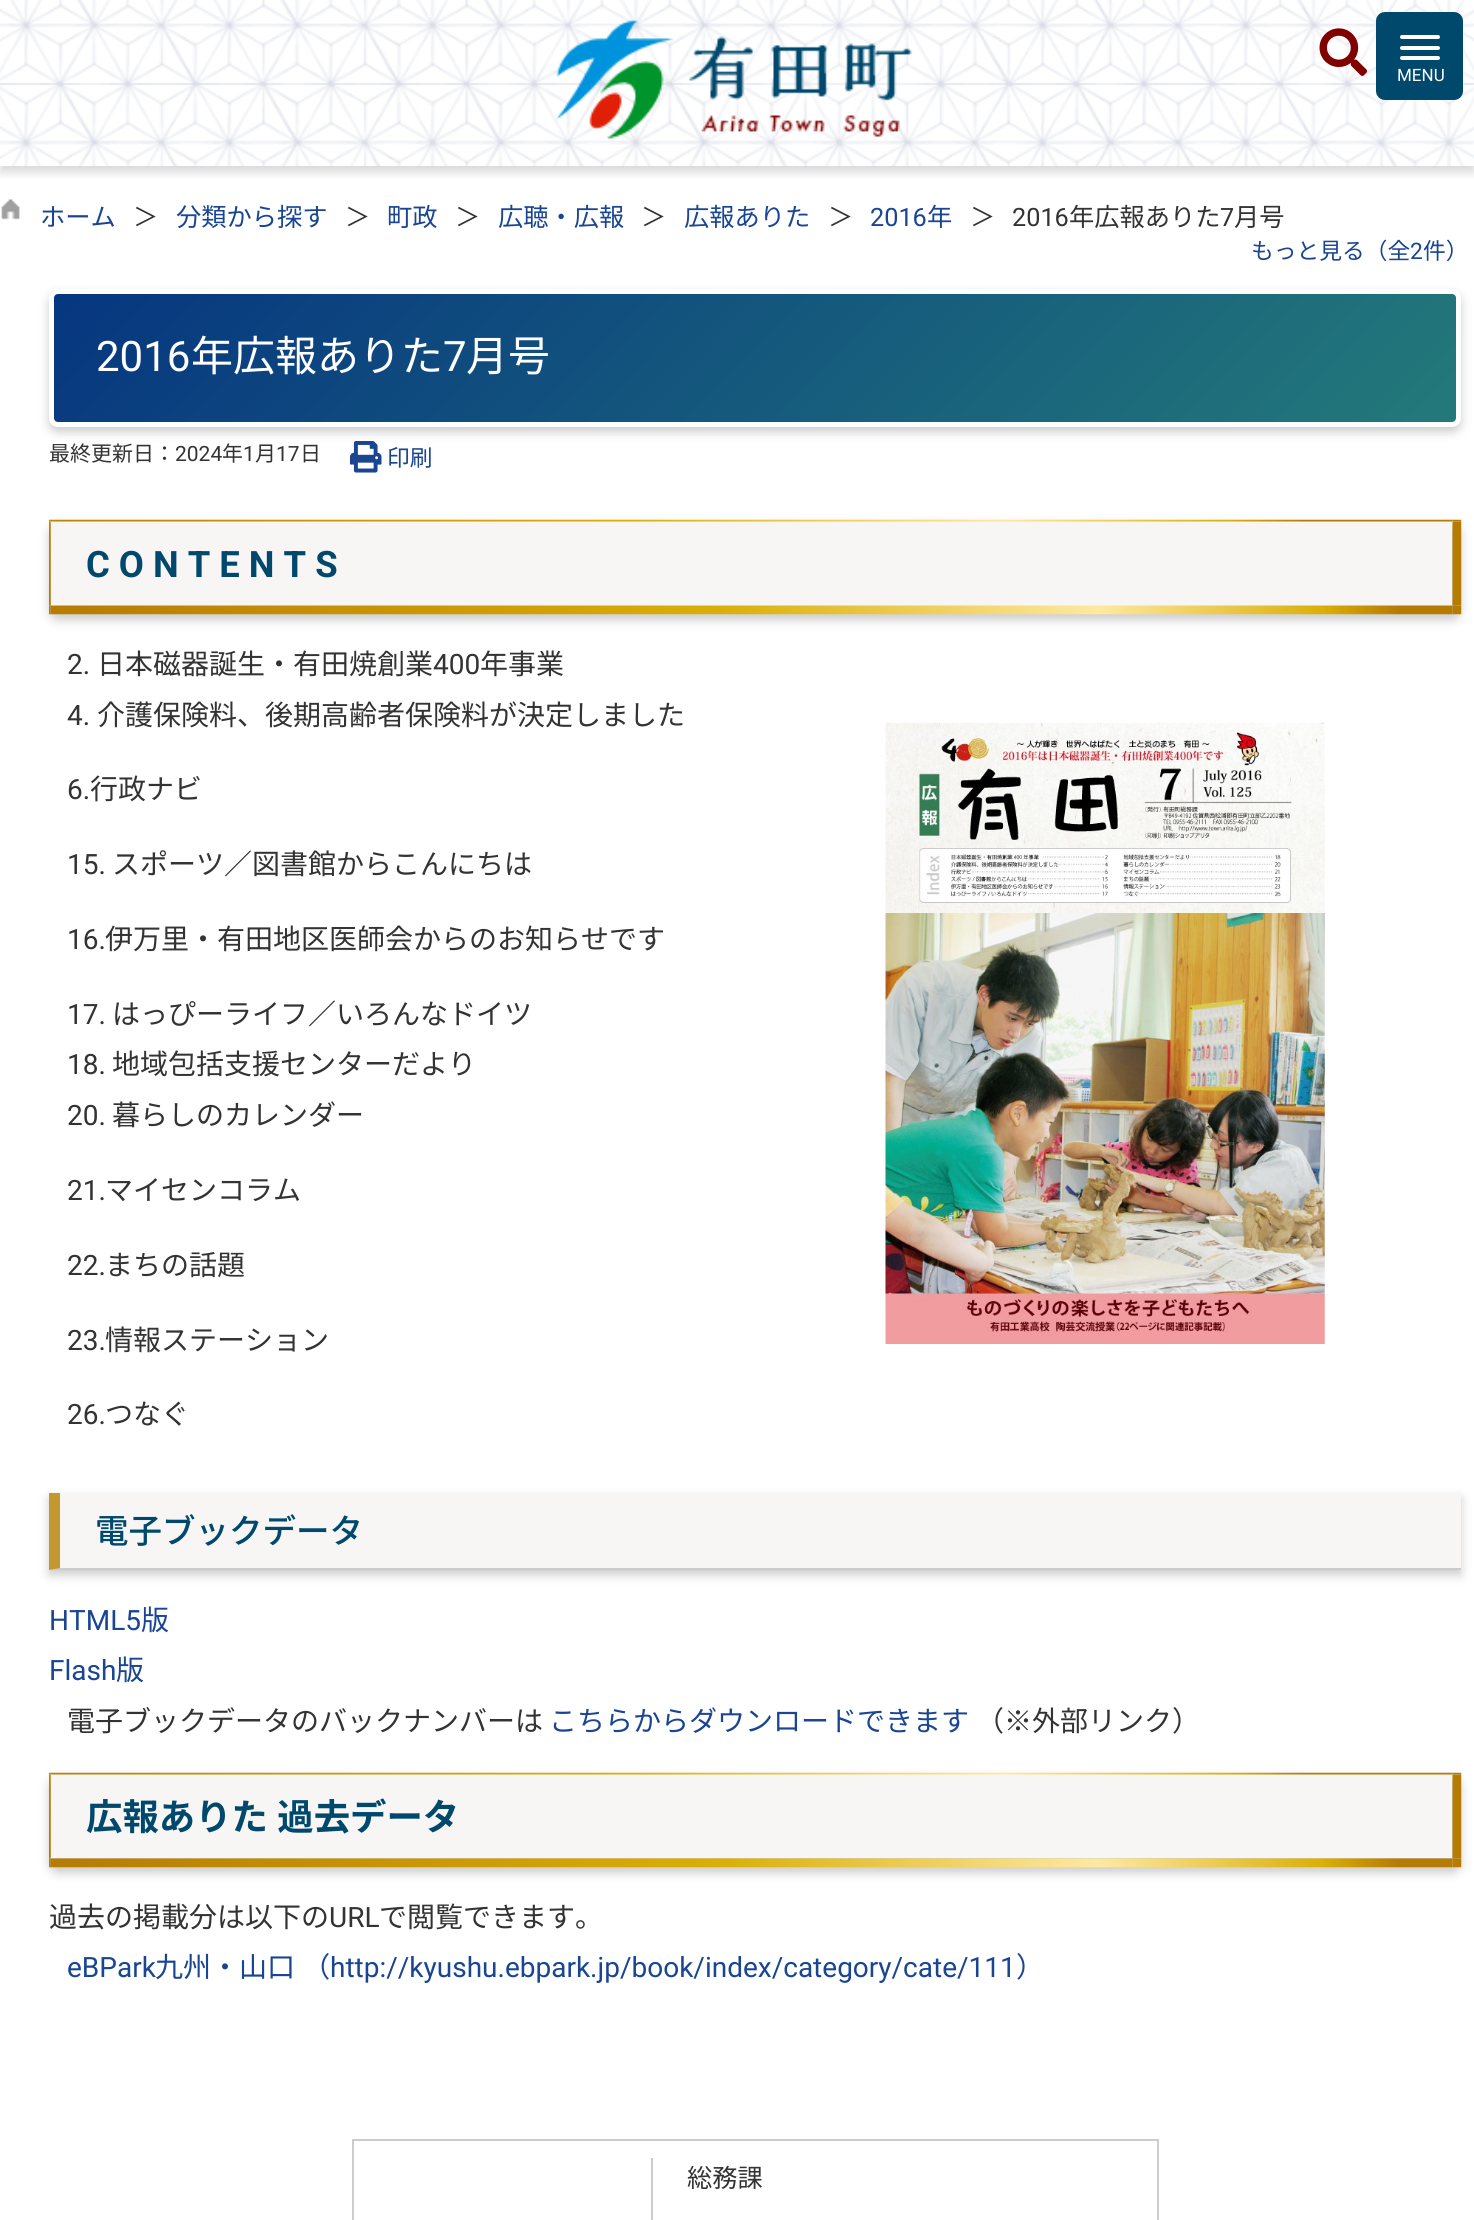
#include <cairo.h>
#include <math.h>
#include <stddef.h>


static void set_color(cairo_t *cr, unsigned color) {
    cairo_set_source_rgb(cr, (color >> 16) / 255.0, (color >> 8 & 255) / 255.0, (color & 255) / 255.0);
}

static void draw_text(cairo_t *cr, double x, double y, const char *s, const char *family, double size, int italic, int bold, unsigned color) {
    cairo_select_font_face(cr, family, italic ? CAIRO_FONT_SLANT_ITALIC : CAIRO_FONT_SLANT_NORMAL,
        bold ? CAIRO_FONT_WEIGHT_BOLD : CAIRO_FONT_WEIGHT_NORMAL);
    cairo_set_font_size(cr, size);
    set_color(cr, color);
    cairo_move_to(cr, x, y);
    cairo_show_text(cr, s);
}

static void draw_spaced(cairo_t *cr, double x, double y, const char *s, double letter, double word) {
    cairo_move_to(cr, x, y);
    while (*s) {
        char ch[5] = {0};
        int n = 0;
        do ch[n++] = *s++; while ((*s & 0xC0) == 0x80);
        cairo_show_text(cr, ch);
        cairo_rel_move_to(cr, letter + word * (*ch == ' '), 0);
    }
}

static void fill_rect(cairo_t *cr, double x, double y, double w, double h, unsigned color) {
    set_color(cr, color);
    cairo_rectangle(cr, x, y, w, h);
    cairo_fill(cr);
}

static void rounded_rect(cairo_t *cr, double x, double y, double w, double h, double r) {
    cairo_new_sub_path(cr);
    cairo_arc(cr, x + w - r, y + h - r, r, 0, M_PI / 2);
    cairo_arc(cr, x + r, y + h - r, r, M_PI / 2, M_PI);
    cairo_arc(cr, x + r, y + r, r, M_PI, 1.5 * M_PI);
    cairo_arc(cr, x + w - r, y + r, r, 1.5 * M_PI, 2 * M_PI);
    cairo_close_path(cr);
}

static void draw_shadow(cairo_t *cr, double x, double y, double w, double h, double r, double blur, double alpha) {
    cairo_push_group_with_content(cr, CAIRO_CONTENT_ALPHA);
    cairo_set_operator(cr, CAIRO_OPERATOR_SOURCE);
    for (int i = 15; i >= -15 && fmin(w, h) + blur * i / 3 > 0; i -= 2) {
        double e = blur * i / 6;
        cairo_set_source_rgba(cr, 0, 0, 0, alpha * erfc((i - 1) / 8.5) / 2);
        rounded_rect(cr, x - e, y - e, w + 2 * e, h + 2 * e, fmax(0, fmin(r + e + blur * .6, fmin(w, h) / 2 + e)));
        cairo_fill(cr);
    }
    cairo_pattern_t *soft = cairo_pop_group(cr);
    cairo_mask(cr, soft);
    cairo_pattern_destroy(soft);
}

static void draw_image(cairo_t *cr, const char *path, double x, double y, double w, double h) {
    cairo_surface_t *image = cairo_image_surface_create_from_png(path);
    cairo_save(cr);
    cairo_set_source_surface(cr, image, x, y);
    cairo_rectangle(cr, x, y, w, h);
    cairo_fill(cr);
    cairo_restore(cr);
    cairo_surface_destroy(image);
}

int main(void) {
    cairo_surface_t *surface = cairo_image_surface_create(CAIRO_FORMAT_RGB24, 1474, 2220);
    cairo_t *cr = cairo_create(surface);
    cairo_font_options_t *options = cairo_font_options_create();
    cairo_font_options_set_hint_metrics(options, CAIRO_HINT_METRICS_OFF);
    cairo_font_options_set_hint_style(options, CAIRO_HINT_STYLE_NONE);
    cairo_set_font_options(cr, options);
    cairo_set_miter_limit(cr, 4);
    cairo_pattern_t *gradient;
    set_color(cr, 0xFFFFFF);
    cairo_paint(cr);
    draw_image(cr, "assets/img1.png", 0, 0, 1474, 167);
    cairo_save(cr);
    cairo_rectangle(cr, 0, 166, 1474, 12);
    cairo_clip(cr);
    set_color(cr, 0x000000);
    draw_shadow(cr, 0, 5, 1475, 167, 0, 5, 0.16);
    cairo_restore(cr);
    draw_image(cr, "assets/img2.png", 1319, 28, 49, 48);
    draw_image(cr, "assets/img3.png", 556, 19, 357, 120);
    set_color(cr, 0x00496D);
    rounded_rect(cr, 1376, 12, 87, 88, 9);
    cairo_fill(cr);
    set_color(cr, 0xFFFFFF);
    rounded_rect(cr, 1400, 35, 40, 4, 2);
    cairo_fill(cr);
    rounded_rect(cr, 1400, 46, 40, 4, 2);
    cairo_fill(cr);
    rounded_rect(cr, 1400, 56, 40, 4, 2);
    cairo_fill(cr);
    draw_text(cr, 1397, 81, "MENU", "Roboto", 17, 0, 0, 0xFFFFFF);
    draw_image(cr, "assets/img4.png", 1, 199, 19, 21);
    draw_text(cr, 40, 226, "ホーム", "Noto Sans JP", 25.25, 0, 0, 0x194593);
    draw_text(cr, 133, 226, "＞", "Noto Sans JP", 25.25, 0, 0, 0x333333);
    draw_text(cr, 176, 226, "分類から探す", "Noto Sans JP", 25.25, 0, 0, 0x194593);
    draw_text(cr, 345, 226, "＞", "Noto Sans JP", 25.25, 0, 0, 0x333333);
    draw_text(cr, 387, 226, "町政", "Noto Sans JP", 25.25, 0, 0, 0x194593);
    draw_text(cr, 455, 226, "＞", "Noto Sans JP", 25.25, 0, 0, 0x333333);
    draw_text(cr, 498, 226, "広聴・広報", "Noto Sans JP", 25.25, 0, 0, 0x194593);
    draw_text(cr, 641, 226, "＞", "Noto Sans JP", 25.25, 0, 0, 0x333333);
    draw_text(cr, 684, 226, "広報ありた", "Noto Sans JP", 25.25, 0, 0, 0x194593);
    draw_text(cr, 828, 226, "＞", "Noto Sans JP", 25.25, 0, 0, 0x333333);
    draw_text(cr, 870, 226, "2016", "Roboto", 25.25, 0, 0, 0x194593);
    draw_text(cr, 927, 226, "年", "Noto Sans JP", 25.25, 0, 0, 0x194593);
    draw_text(cr, 970, 226, "＞", "Noto Sans JP", 25.25, 0, 0, 0x333333);
    draw_text(cr, 1012, 226, "2016", "Roboto", 25.25, 0, 0, 0x333333);
    draw_text(cr, 1069, 226, "年広報ありた", "Noto Sans JP", 25.25, 0, 0, 0x333333);
    draw_text(cr, 1220, 226, "7", "Roboto", 25.25, 0, 0, 0x333333);
    draw_text(cr, 1234, 226, "月号", "Noto Sans JP", 25.25, 0, 0, 0x333333);
    draw_text(cr, 1251, 259, "もっと見る（全", "Noto Sans JP", 22.75, 0, 0, 0x194593);
    draw_text(cr, 1410, 259, "2", "Roboto", 22.75, 0, 0, 0x194593);
    draw_text(cr, 1423, 259, "件）", "Noto Sans JP", 22.75, 0, 0, 0x194593);
    draw_image(cr, "assets/img5.png", 350, 441, 32, 32);
    set_color(cr, 0x000000);
    draw_shadow(cr, 49, 294, 1412, 138, 9, 5, 0.2);
    gradient = cairo_pattern_create_linear(1138, 740, 373, -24);
    cairo_pattern_add_color_stop_rgba(gradient, 0, 0.137, 0.478, 0.478, 1);
    cairo_pattern_add_color_stop_rgba(gradient, 1, 0.024, 0.212, 0.502, 1);
    cairo_set_source(cr, gradient);
    cairo_pattern_destroy(gradient);
    cairo_rectangle(cr, 54, 294, 1402, 128);
    cairo_fill(cr);
    rounded_rect(cr, 51.5, 291.5, 1407, 133, 6.5);
    set_color(cr, 0xFFFFFF);
    cairo_set_line_width(cr, 5);
    cairo_stroke(cr);
    draw_text(cr, 96, 371, "2016", "Roboto", 42, 0, 0, 0xFFFFFF);
    draw_text(cr, 191, 371, "年広報ありた", "Noto Sans JP", 42, 0, 0, 0xFFFFFF);
    draw_text(cr, 443, 371, "7", "Roboto", 42, 0, 0, 0xFFFFFF);
    draw_text(cr, 466, 371, "月号", "Noto Sans JP", 42, 0, 0, 0xFFFFFF);
    draw_text(cr, 49, 461, "最終更新日：", "Noto Sans JP", 21, 0, 0, 0x333333);
    draw_text(cr, 175, 461, "2024", "Roboto", 21, 0, 0, 0x333333);
    draw_text(cr, 222, 461, "年", "Noto Sans JP", 21, 0, 0, 0x333333);
    draw_text(cr, 243, 461, "1", "Roboto", 21, 0, 0, 0x333333);
    draw_text(cr, 255, 461, "月", "Noto Sans JP", 21, 0, 0, 0x333333);
    draw_text(cr, 276, 461, "17", "Roboto", 21, 0, 0, 0x333333);
    draw_text(cr, 300, 461, "日", "Noto Sans JP", 21, 0, 0, 0x333333);
    draw_text(cr, 387, 466, "印刷", "Noto Sans JP", 22.75, 0, 0, 0x194593);
    set_color(cr, 0x000000);
    draw_shadow(cr, 49, 525, 1412, 95, 9, 5, 0.2);
    set_color(cr, 0xF7F6F5);
    cairo_new_path(cr);
    cairo_move_to(cr, 58, 522);
    cairo_line_to(cr, 1452, 522);
    cairo_line_to(cr, 1452, 606);
    cairo_line_to(cr, 51, 606);
    cairo_line_to(cr, 51, 528);
    cairo_curve_to(cr, 51, 525, 54, 522, 58, 522);
    cairo_close_path(cr);
    cairo_fill(cr);
    draw_image(cr, "assets/img6.png", 49, 519, 1413, 96);
    draw_text(cr, 86, 577, "C O N T E N T S", "Roboto", 36.4, 0, 1, 0x00496D);
    draw_text(cr, 67, 674, "2.", "Roboto", 28, 0, 0, 0x333333);
    draw_text(cr, 97, 674, "日本磁器誕生・有田焼創業", "Noto Sans JP", 28, 0, 0, 0x333333);
    draw_text(cr, 433, 674, "400", "Roboto", 28, 0, 0, 0x333333);
    draw_text(cr, 480, 674, "年事業", "Noto Sans JP", 28, 0, 0, 0x333333);
    draw_text(cr, 67, 725, "4.", "Roboto", 28, 0, 0, 0x333333);
    draw_text(cr, 97, 725, "介護保険料、後期高齢者保険料が決定しました", "Noto Sans JP", 28, 0, 0, 0x333333);
    draw_text(cr, 67, 799, "6.", "Roboto", 28, 0, 0, 0x333333);
    draw_text(cr, 90, 799, "行政ナビ", "Noto Sans JP", 28, 0, 0, 0x333333);
    draw_text(cr, 67, 874, "15.", "Roboto", 28, 0, 0, 0x333333);
    draw_text(cr, 112, 874, "スポーツ／図書館からこんにちは", "Noto Sans JP", 28, 0, 0, 0x333333);
    draw_text(cr, 67, 949, "16.", "Roboto", 28, 0, 0, 0x333333);
    draw_text(cr, 105, 949, "伊万里・有田地区医師会からのお知らせです", "Noto Sans JP", 28, 0, 0, 0x333333);
    draw_text(cr, 67, 1024, "17.", "Roboto", 28, 0, 0, 0x333333);
    draw_text(cr, 112, 1024, "はっぴーライフ／いろんなドイツ", "Noto Sans JP", 28, 0, 0, 0x333333);
    draw_text(cr, 67, 1074, "18.", "Roboto", 28, 0, 0, 0x333333);
    draw_text(cr, 112, 1074, "地域包括支援センターだより", "Noto Sans JP", 28, 0, 0, 0x333333);
    draw_text(cr, 67, 1125, "20.", "Roboto", 28, 0, 0, 0x333333);
    draw_text(cr, 112, 1125, "暮らしのカレンダー", "Noto Sans JP", 28, 0, 0, 0x333333);
    draw_text(cr, 67, 1200, "21.", "Roboto", 28, 0, 0, 0x333333);
    draw_text(cr, 105, 1200, "マイセンコラム", "Noto Sans JP", 28, 0, 0, 0x333333);
    draw_text(cr, 67, 1275, "22.", "Roboto", 28, 0, 0, 0x333333);
    draw_text(cr, 105, 1275, "まちの話題", "Noto Sans JP", 28, 0, 0, 0x333333);
    draw_text(cr, 67, 1350, "23.", "Roboto", 28, 0, 0, 0x333333);
    draw_text(cr, 105, 1350, "情報ステーション", "Noto Sans JP", 28, 0, 0, 0x333333);
    draw_text(cr, 67, 1424, "26.", "Roboto", 28, 0, 0, 0x333333);
    draw_text(cr, 105, 1424, "つなぐ", "Noto Sans JP", 28, 0, 0, 0x333333);
    draw_image(cr, "assets/img7.png", 885, 722, 440, 622);
    set_color(cr, 0x000000);
    draw_shadow(cr, 49, 1498, 1412, 77, 0, 5, 0.2);
    fill_rect(cr, 60, 1493, 1401, 75, 0xF7F6F5);
    set_color(cr, 0xCCCCCC);
    cairo_new_path(cr);
    cairo_move_to(cr, 1461, 1570);
    cairo_line_to(cr, 49, 1570);
    cairo_line_to(cr, 60, 1568);
    cairo_line_to(cr, 1461, 1568);
    cairo_close_path(cr);
    cairo_fill(cr);
    set_color(cr, 0xC4972F);
    cairo_new_path(cr);
    cairo_move_to(cr, 49, 1570);
    cairo_line_to(cr, 49, 1493);
    cairo_line_to(cr, 60, 1493);
    cairo_line_to(cr, 60, 1568);
    cairo_close_path(cr);
    cairo_fill(cr);
    draw_text(cr, 95, 1543, "電子ブックデータ", "Noto Sans JP Medium", 33.5, 0, 0, 0x00496D);
    draw_text(cr, 49, 1630, "HTML5", "Roboto", 28, 0, 0, 0x194593);
    draw_text(cr, 141, 1630, "版", "Noto Sans JP", 28, 0, 0, 0x194593);
    draw_text(cr, 49, 1680, "Flash", "Roboto", 28, 0, 0, 0x194593);
    draw_text(cr, 116, 1680, "版", "Noto Sans JP", 28, 0, 0, 0x194593);
    draw_text(cr, 67, 1731, "電子ブックデータのバックナンバーは", "Noto Sans JP", 28, 0, 0, 0x333333);
    draw_text(cr, 549, 1731, "こちらからダウンロードできます", "Noto Sans JP", 28, 0, 0, 0x194593);
    draw_text(cr, 976, 1731, "（※外部リンク）", "Noto Sans JP", 28, 0, 0, 0x333333);
    set_color(cr, 0x000000);
    draw_shadow(cr, 49, 1778, 1412, 95, 9, 5, 0.2);
    set_color(cr, 0xF7F6F5);
    cairo_new_path(cr);
    cairo_move_to(cr, 58, 1774);
    cairo_line_to(cr, 1452, 1774);
    cairo_line_to(cr, 1452, 1858);
    cairo_line_to(cr, 51, 1858);
    cairo_line_to(cr, 51, 1782);
    cairo_curve_to(cr, 51, 1778, 54, 1774, 58, 1774);
    cairo_close_path(cr);
    cairo_fill(cr);
    draw_image(cr, "assets/img8.png", 49, 1772, 1413, 96);
    cairo_select_font_face(cr, "Noto Sans JP", CAIRO_FONT_SLANT_NORMAL, CAIRO_FONT_WEIGHT_BOLD);
    cairo_set_font_size(cr, 36.4);
    set_color(cr, 0x00496D);
    draw_spaced(cr, 86, 1830, "広報ありた 過去データ", 0, 1);
    draw_text(cr, 49, 1927, "過去の掲載分は以下の", "Noto Sans JP", 28, 0, 0, 0x333333);
    draw_text(cr, 329, 1927, "URL", "Roboto", 28, 0, 0, 0x333333);
    draw_text(cr, 379, 1927, "で閲覧できます。", "Noto Sans JP", 28, 0, 0, 0x333333);
    draw_text(cr, 67, 1977, "eBPark", "Roboto", 28, 0, 0, 0x194593);
    cairo_select_font_face(cr, "Noto Sans JP", CAIRO_FONT_SLANT_NORMAL, CAIRO_FONT_WEIGHT_NORMAL);
    draw_spaced(cr, 155, 1977, "九州・山口 （", 0, 1);
    draw_text(cr, 330, 1977, "http://kyushu.ebpark.jp/book/index/category/cate/111", "Roboto", 28, 0, 0, 0x194593);
    draw_text(cr, 1016, 1977, "）", "Noto Sans JP", 28, 0, 0, 0x194593);
    cairo_rectangle(cr, 353, 2140, 805, 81);
    set_color(cr, 0xCCCCCC);
    cairo_set_line_width(cr, 2);
    cairo_stroke(cr);
    fill_rect(cr, 651, 2158, 2, 62, 0xCCCCCC);
    draw_text(cr, 687, 2187, "総務課", "Noto Sans JP", 25.25, 0, 0, 0x333333);
    cairo_surface_write_to_png(surface, "output.png");
    cairo_font_options_destroy(options);
    cairo_destroy(cr);
    cairo_surface_destroy(surface);
    return 0;
}
